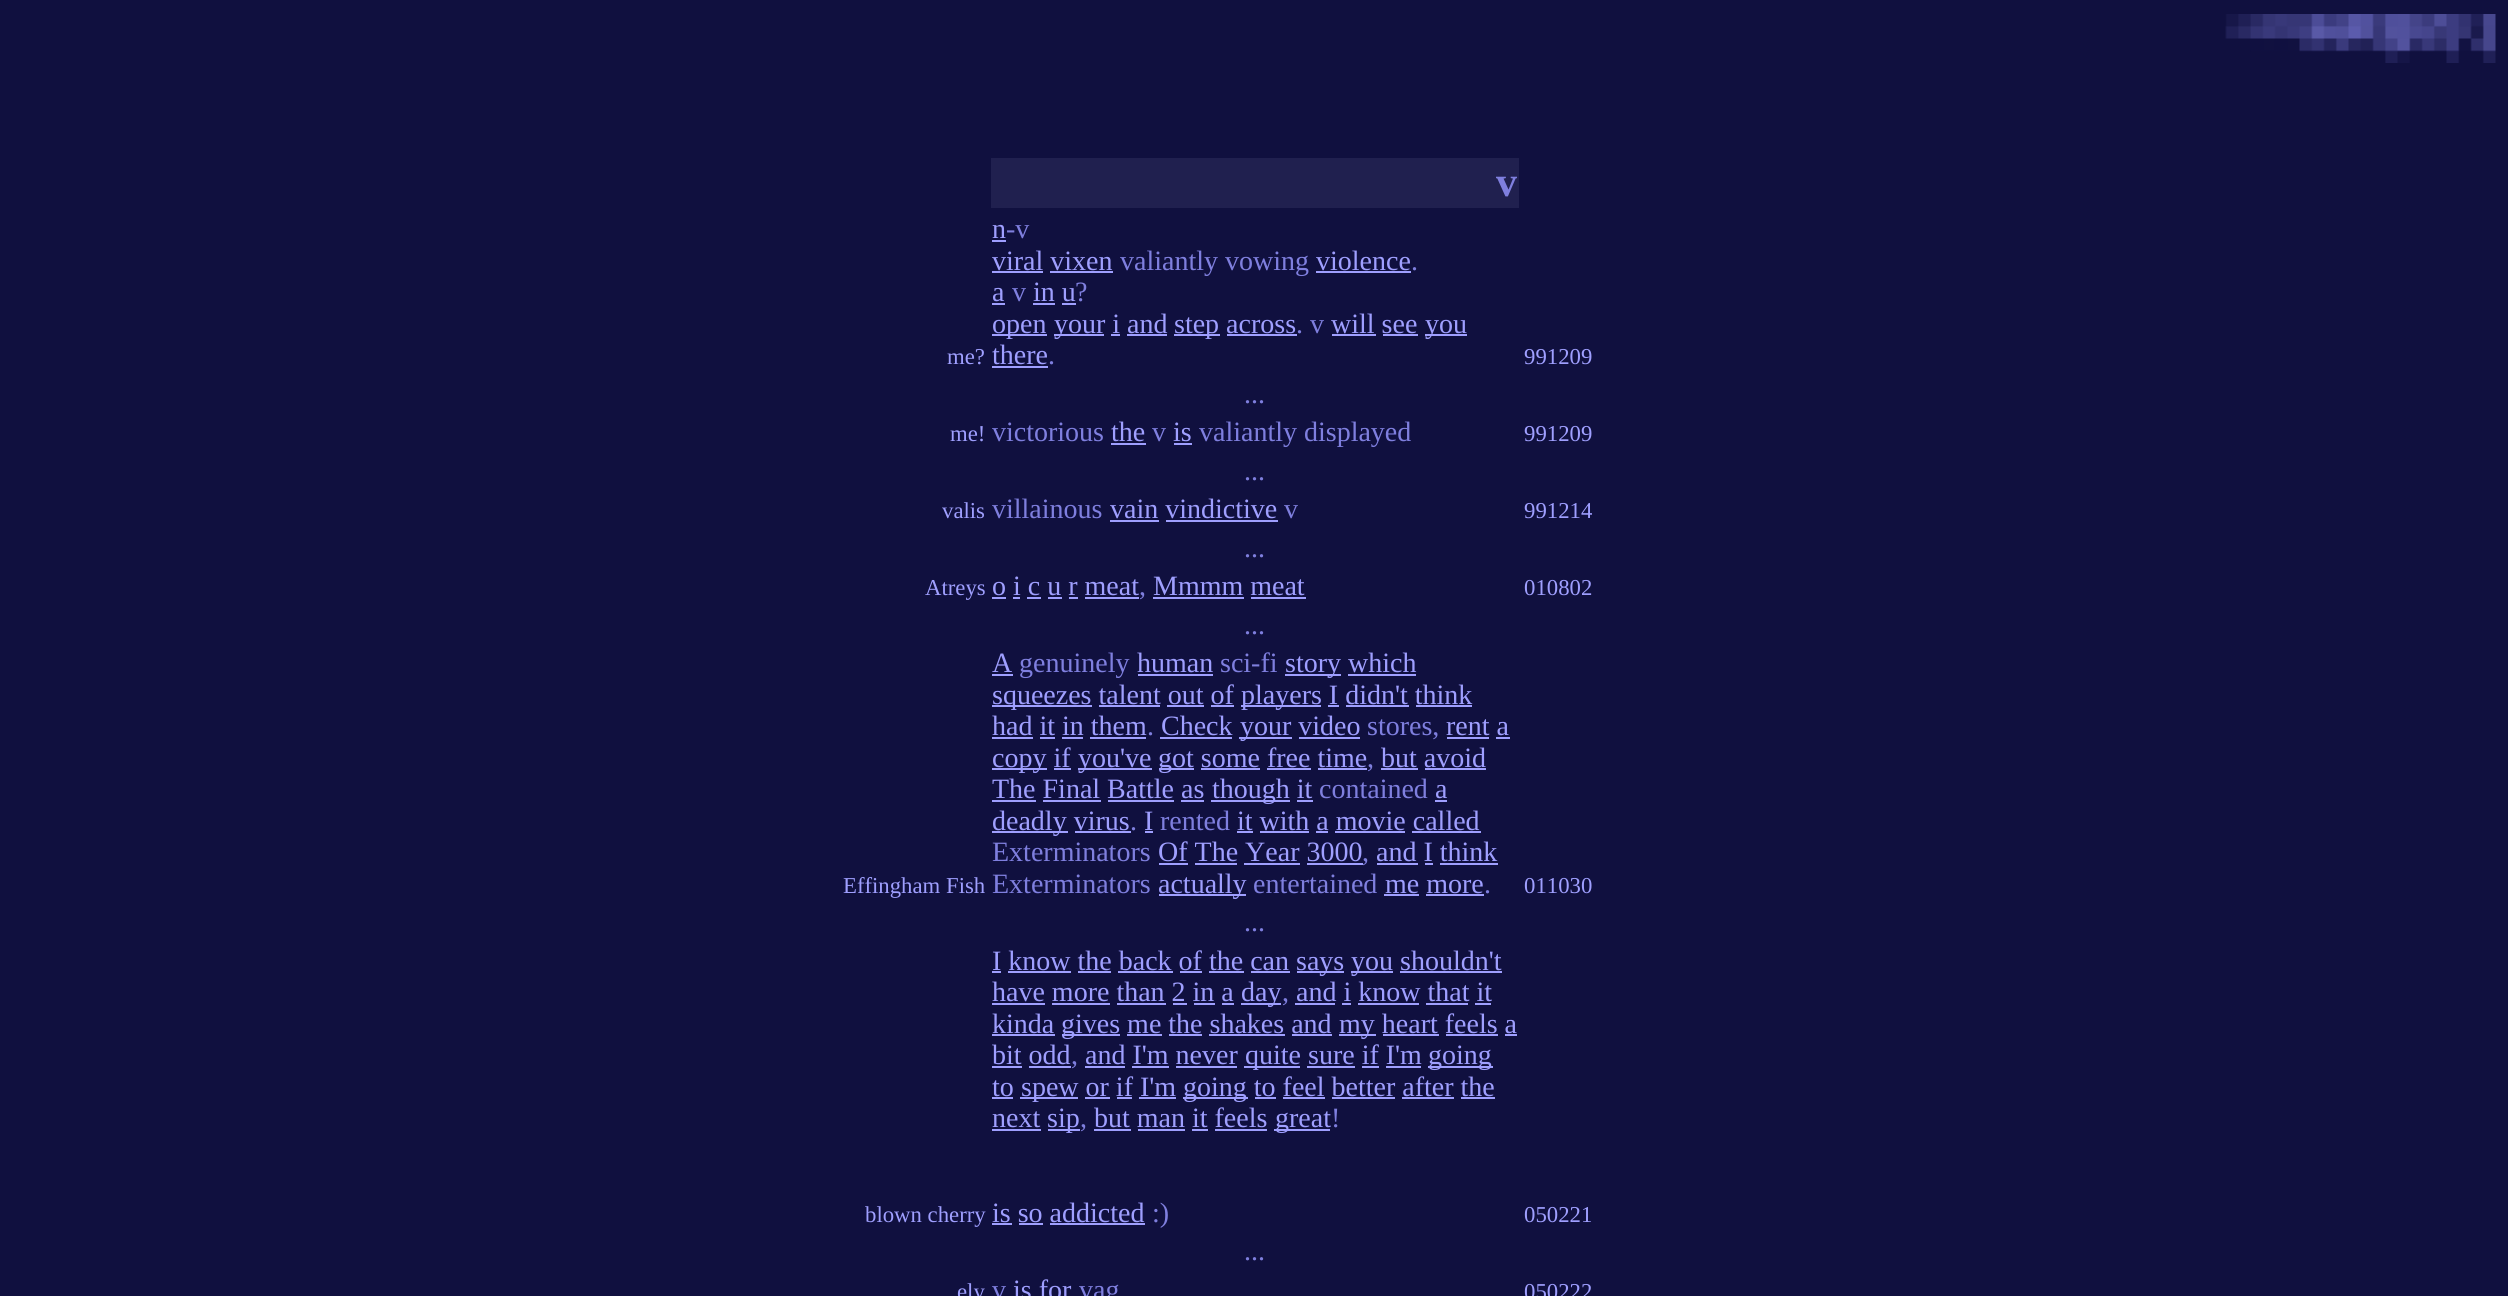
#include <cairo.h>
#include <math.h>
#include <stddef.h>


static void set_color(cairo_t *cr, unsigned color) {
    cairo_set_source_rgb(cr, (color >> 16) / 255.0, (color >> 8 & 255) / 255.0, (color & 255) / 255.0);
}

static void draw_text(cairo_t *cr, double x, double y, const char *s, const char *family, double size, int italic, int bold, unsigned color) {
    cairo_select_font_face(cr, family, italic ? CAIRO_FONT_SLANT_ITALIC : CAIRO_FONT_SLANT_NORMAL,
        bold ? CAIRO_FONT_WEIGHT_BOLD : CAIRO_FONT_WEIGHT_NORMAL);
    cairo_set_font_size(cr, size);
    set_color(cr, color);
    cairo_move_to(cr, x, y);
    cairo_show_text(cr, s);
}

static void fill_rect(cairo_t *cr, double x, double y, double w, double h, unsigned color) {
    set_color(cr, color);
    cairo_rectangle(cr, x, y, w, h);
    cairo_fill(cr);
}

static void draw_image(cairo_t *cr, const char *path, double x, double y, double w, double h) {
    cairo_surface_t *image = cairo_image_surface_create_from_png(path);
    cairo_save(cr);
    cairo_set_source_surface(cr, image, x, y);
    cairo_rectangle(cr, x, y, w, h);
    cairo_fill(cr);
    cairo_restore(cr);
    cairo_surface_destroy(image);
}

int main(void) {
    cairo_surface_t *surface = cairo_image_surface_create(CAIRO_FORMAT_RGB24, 2508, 1296);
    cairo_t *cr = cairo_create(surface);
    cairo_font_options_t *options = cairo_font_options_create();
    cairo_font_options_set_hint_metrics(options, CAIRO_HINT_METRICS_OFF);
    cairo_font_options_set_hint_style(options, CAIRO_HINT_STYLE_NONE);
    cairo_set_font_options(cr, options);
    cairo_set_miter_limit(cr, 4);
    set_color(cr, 0x10103F);
    cairo_paint(cr);
    draw_image(cr, "assets/img1.png", 2225, 14, 271, 49);
    fill_rect(cr, 991, 158, 528, 50, 0x20204F);
    draw_text(cr, 1496, 196, "v", "Liberation Serif", 42, 0, 1, 0x7F7FDF);
    draw_text(cr, 947, 364, "me?", "Liberation Serif", 22.75, 0, 0, 0x9F9FFF);
    draw_text(cr, 992, 238, "n", "Liberation Serif", 28, 0, 0, 0x9F9FFF);
    fill_rect(cr, 992, 240, 14, 2, 0x9F9FFF);
    draw_text(cr, 1006, 238, "-v", "Liberation Serif", 28, 0, 0, 0x7F7FDF);
    draw_text(cr, 992, 270, "viral vixen", "Liberation Serif", 28, 0, 0, 0x9F9FFF);
    fill_rect(cr, 992, 271, 51, 2, 0x9F9FFF);
    draw_text(cr, 1120, 270, "valiantly vowing", "Liberation Serif", 28, 0, 0, 0x7F7FDF);
    draw_text(cr, 1316, 270, "violence", "Liberation Serif", 28, 0, 0, 0x9F9FFF);
    fill_rect(cr, 1316, 271, 95, 2, 0x9F9FFF);
    draw_text(cr, 1411, 270, ".", "Liberation Serif", 28, 0, 0, 0x7F7FDF);
    fill_rect(cr, 1050, 271, 63, 2, 0x9F9FFF);
    draw_text(cr, 992, 301, "a", "Liberation Serif", 28, 0, 0, 0x9F9FFF);
    fill_rect(cr, 992, 303, 13, 2, 0x9F9FFF);
    draw_text(cr, 1012, 301, "v", "Liberation Serif", 28, 0, 0, 0x7F7FDF);
    draw_text(cr, 1033, 301, "in u", "Liberation Serif", 28, 0, 0, 0x9F9FFF);
    fill_rect(cr, 1033, 303, 22, 2, 0x9F9FFF);
    draw_text(cr, 1075, 301, "?", "Liberation Serif", 28, 0, 0, 0x7F7FDF);
    fill_rect(cr, 1062, 303, 14, 2, 0x9F9FFF);
    fill_rect(cr, 992, 334, 55, 2, 0x9F9FFF);
    draw_text(cr, 992, 333, "open", "Liberation Serif", 28, 0, 0, 0x9F9FFF);
    fill_rect(cr, 1054, 334, 50, 2, 0x9F9FFF);
    draw_text(cr, 1054, 333, "your i and", "Liberation Serif", 28, 0, 0, 0x9F9FFF);
    fill_rect(cr, 1174, 334, 46, 2, 0x9F9FFF);
    draw_text(cr, 1174, 333, "step across", "Liberation Serif", 28, 0, 0, 0x9F9FFF);
    draw_text(cr, 1296, 333, ". v", "Liberation Serif", 28, 0, 0, 0x7F7FDF);
    draw_text(cr, 1331, 333, "will see", "Liberation Serif", 28, 0, 0, 0x9F9FFF);
    fill_rect(cr, 1332, 334, 44, 2, 0x9F9FFF);
    fill_rect(cr, 1425, 334, 42, 2, 0x9F9FFF);
    draw_text(cr, 1425, 333, "you", "Liberation Serif", 28, 0, 0, 0x9F9FFF);
    fill_rect(cr, 1111, 334, 9, 2, 0x9F9FFF);
    fill_rect(cr, 1127, 334, 40, 2, 0x9F9FFF);
    fill_rect(cr, 1227, 334, 70, 2, 0x9F9FFF);
    fill_rect(cr, 1383, 334, 35, 2, 0x9F9FFF);
    draw_text(cr, 992, 364, "there", "Liberation Serif", 28, 0, 0, 0x9F9FFF);
    fill_rect(cr, 992, 366, 56, 2, 0x9F9FFF);
    draw_text(cr, 1048, 364, ".", "Liberation Serif", 28, 0, 0, 0x7F7FDF);
    draw_text(cr, 1524, 364, "991209", "Liberation Serif", 22.75, 0, 0, 0x9F9FFF);
    draw_text(cr, 1244, 403, "...", "Liberation Serif", 28, 0, 0, 0x7F7FDF);
    draw_text(cr, 950, 441, "me!", "Liberation Serif", 22.75, 0, 0, 0x9F9FFF);
    draw_text(cr, 992, 441, "victorious", "Liberation Serif", 28, 0, 0, 0x7F7FDF);
    draw_text(cr, 1111, 441, "the", "Liberation Serif", 28, 0, 0, 0x9F9FFF);
    fill_rect(cr, 1111, 443, 35, 2, 0x9F9FFF);
    draw_text(cr, 1152, 441, "v", "Liberation Serif", 28, 0, 0, 0x7F7FDF);
    draw_text(cr, 1173, 441, "is", "Liberation Serif", 28, 0, 0, 0x9F9FFF);
    fill_rect(cr, 1174, 443, 18, 2, 0x9F9FFF);
    draw_text(cr, 1199, 441, "valiantly displayed", "Liberation Serif", 28, 0, 0, 0x7F7FDF);
    draw_text(cr, 1524, 441, "991209", "Liberation Serif", 22.75, 0, 0, 0x9F9FFF);
    draw_text(cr, 1244, 480, "...", "Liberation Serif", 28, 0, 0, 0x7F7FDF);
    draw_text(cr, 942, 518, "valis", "Liberation Serif", 22.75, 0, 0, 0x9F9FFF);
    draw_text(cr, 992, 518, "villainous", "Liberation Serif", 28, 0, 0, 0x7F7FDF);
    draw_text(cr, 1110, 518, "vain vindictive", "Liberation Serif", 28, 0, 0, 0x9F9FFF);
    fill_rect(cr, 1110, 520, 49, 2, 0x9F9FFF);
    draw_text(cr, 1284, 518, "v", "Liberation Serif", 28, 0, 0, 0x7F7FDF);
    fill_rect(cr, 1166, 520, 112, 2, 0x9F9FFF);
    draw_text(cr, 1524, 518, "991214", "Liberation Serif", 22.75, 0, 0, 0x9F9FFF);
    draw_text(cr, 1244, 557, "...", "Liberation Serif", 28, 0, 0, 0x7F7FDF);
    draw_text(cr, 925, 595, "Atreys", "Liberation Serif", 22.75, 0, 0, 0x9F9FFF);
    draw_text(cr, 992, 595, "o i c u r meat", "Liberation Serif", 28, 0, 0, 0x9F9FFF);
    fill_rect(cr, 992, 597, 14, 2, 0x9F9FFF);
    draw_text(cr, 1139, 595, ",", "Liberation Serif", 28, 0, 0, 0x7F7FDF);
    draw_text(cr, 1153, 595, "Mmmm meat", "Liberation Serif", 28, 0, 0, 0x9F9FFF);
    fill_rect(cr, 1153, 597, 91, 2, 0x9F9FFF);
    fill_rect(cr, 1013, 597, 7, 2, 0x9F9FFF);
    fill_rect(cr, 1027, 597, 14, 2, 0x9F9FFF);
    fill_rect(cr, 1048, 597, 14, 2, 0x9F9FFF);
    fill_rect(cr, 1069, 597, 9, 2, 0x9F9FFF);
    fill_rect(cr, 1085, 597, 54, 2, 0x9F9FFF);
    fill_rect(cr, 1251, 597, 55, 2, 0x9F9FFF);
    draw_text(cr, 1524, 595, "010802", "Liberation Serif", 22.75, 0, 0, 0x9F9FFF);
    draw_text(cr, 1244, 634, "...", "Liberation Serif", 28, 0, 0, 0x7F7FDF);
    draw_text(cr, 843, 893, "Effingham Fish", "Liberation Serif", 22.75, 0, 0, 0x9F9FFF);
    draw_text(cr, 992, 672, "A", "Liberation Serif", 28, 0, 0, 0x9F9FFF);
    fill_rect(cr, 992, 674, 21, 2, 0x9F9FFF);
    draw_text(cr, 1019, 672, "genuinely", "Liberation Serif", 28, 0, 0, 0x7F7FDF);
    draw_text(cr, 1137, 672, "human", "Liberation Serif", 28, 0, 0, 0x9F9FFF);
    fill_rect(cr, 1138, 674, 75, 2, 0x9F9FFF);
    draw_text(cr, 1220, 672, "sci-fi", "Liberation Serif", 28, 0, 0, 0x7F7FDF);
    fill_rect(cr, 1285, 674, 56, 2, 0x9F9FFF);
    draw_text(cr, 1285, 672, "story which", "Liberation Serif", 28, 0, 0, 0x9F9FFF);
    fill_rect(cr, 1348, 674, 68, 2, 0x9F9FFF);
    fill_rect(cr, 992, 705, 100, 2, 0x9F9FFF);
    draw_text(cr, 992, 704, "squeezes talent out of", "Liberation Serif", 28, 0, 0, 0x9F9FFF);
    fill_rect(cr, 1241, 705, 80, 2, 0x9F9FFF);
    draw_text(cr, 1241, 704, "players I didn't think", "Liberation Serif", 28, 0, 0, 0x9F9FFF);
    fill_rect(cr, 1099, 705, 61, 2, 0x9F9FFF);
    fill_rect(cr, 1167, 705, 37, 2, 0x9F9FFF);
    fill_rect(cr, 1211, 705, 23, 2, 0x9F9FFF);
    fill_rect(cr, 1328, 705, 11, 2, 0x9F9FFF);
    fill_rect(cr, 1346, 705, 63, 2, 0x9F9FFF);
    fill_rect(cr, 1416, 705, 56, 2, 0x9F9FFF);
    draw_text(cr, 992, 735, "had it in them", "Liberation Serif", 28, 0, 0, 0x9F9FFF);
    fill_rect(cr, 992, 737, 41, 2, 0x9F9FFF);
    draw_text(cr, 1147, 735, ".", "Liberation Serif", 28, 0, 0, 0x7F7FDF);
    draw_text(cr, 1161, 735, "Check", "Liberation Serif", 28, 0, 0, 0x9F9FFF);
    fill_rect(cr, 1160, 737, 72, 2, 0x9F9FFF);
    fill_rect(cr, 1239, 737, 53, 2, 0x9F9FFF);
    draw_text(cr, 1240, 735, "your video", "Liberation Serif", 28, 0, 0, 0x9F9FFF);
    draw_text(cr, 1367, 735, "stores,", "Liberation Serif", 28, 0, 0, 0x7F7FDF);
    draw_text(cr, 1446, 735, "rent a", "Liberation Serif", 28, 0, 0, 0x9F9FFF);
    fill_rect(cr, 1447, 737, 42, 2, 0x9F9FFF);
    fill_rect(cr, 1040, 737, 15, 2, 0x9F9FFF);
    fill_rect(cr, 1062, 737, 21, 2, 0x9F9FFF);
    fill_rect(cr, 1090, 737, 56, 2, 0x9F9FFF);
    fill_rect(cr, 1299, 737, 61, 2, 0x9F9FFF);
    fill_rect(cr, 1496, 737, 14, 2, 0x9F9FFF);
    fill_rect(cr, 992, 768, 55, 2, 0x9F9FFF);
    draw_text(cr, 992, 767, "copy if", "Liberation Serif", 28, 0, 0, 0x9F9FFF);
    fill_rect(cr, 1078, 768, 74, 2, 0x9F9FFF);
    draw_text(cr, 1078, 767, "you've", "Liberation Serif", 28, 0, 0, 0x9F9FFF);
    fill_rect(cr, 1159, 768, 35, 2, 0x9F9FFF);
    draw_text(cr, 1158, 767, "got some free time", "Liberation Serif", 28, 0, 0, 0x9F9FFF);
    draw_text(cr, 1367, 767, ",", "Liberation Serif", 28, 0, 0, 0x7F7FDF);
    draw_text(cr, 1381, 767, "but avoid", "Liberation Serif", 28, 0, 0, 0x9F9FFF);
    fill_rect(cr, 1381, 768, 37, 2, 0x9F9FFF);
    fill_rect(cr, 1054, 768, 17, 2, 0x9F9FFF);
    fill_rect(cr, 1201, 768, 59, 2, 0x9F9FFF);
    fill_rect(cr, 1267, 768, 44, 2, 0x9F9FFF);
    fill_rect(cr, 1318, 768, 49, 2, 0x9F9FFF);
    fill_rect(cr, 1425, 768, 61, 2, 0x9F9FFF);
    draw_text(cr, 992, 798, "The Final Battle as", "Liberation Serif", 28, 0, 0, 0x9F9FFF);
    fill_rect(cr, 992, 800, 44, 2, 0x9F9FFF);
    fill_rect(cr, 1211, 800, 79, 2, 0x9F9FFF);
    draw_text(cr, 1212, 798, "though it", "Liberation Serif", 28, 0, 0, 0x9F9FFF);
    draw_text(cr, 1319, 798, "contained", "Liberation Serif", 28, 0, 0, 0x7F7FDF);
    draw_text(cr, 1435, 798, "a", "Liberation Serif", 28, 0, 0, 0x9F9FFF);
    fill_rect(cr, 1435, 800, 12, 2, 0x9F9FFF);
    fill_rect(cr, 1043, 800, 58, 2, 0x9F9FFF);
    fill_rect(cr, 1108, 800, 66, 2, 0x9F9FFF);
    fill_rect(cr, 1181, 800, 23, 2, 0x9F9FFF);
    fill_rect(cr, 1297, 800, 16, 2, 0x9F9FFF);
    fill_rect(cr, 992, 831, 76, 2, 0x9F9FFF);
    draw_text(cr, 992, 830, "deadly virus", "Liberation Serif", 28, 0, 0, 0x9F9FFF);
    draw_text(cr, 1130, 830, ".", "Liberation Serif", 28, 0, 0, 0x7F7FDF);
    draw_text(cr, 1144, 830, "I", "Liberation Serif", 28, 0, 0, 0x9F9FFF);
    fill_rect(cr, 1145, 831, 8, 2, 0x9F9FFF);
    draw_text(cr, 1160, 830, "rented", "Liberation Serif", 28, 0, 0, 0x7F7FDF);
    draw_text(cr, 1237, 830, "it with a movie called", "Liberation Serif", 28, 0, 0, 0x9F9FFF);
    fill_rect(cr, 1237, 831, 16, 2, 0x9F9FFF);
    fill_rect(cr, 1075, 831, 56, 2, 0x9F9FFF);
    fill_rect(cr, 1260, 831, 49, 2, 0x9F9FFF);
    fill_rect(cr, 1316, 831, 12, 2, 0x9F9FFF);
    fill_rect(cr, 1335, 831, 70, 2, 0x9F9FFF);
    fill_rect(cr, 1412, 831, 69, 2, 0x9F9FFF);
    draw_text(cr, 992, 861, "Exterminators", "Liberation Serif", 28, 0, 0, 0x7F7FDF);
    draw_text(cr, 1158, 861, "Of The Year 3000", "Liberation Serif", 28, 0, 0, 0x9F9FFF);
    fill_rect(cr, 1159, 863, 29, 2, 0x9F9FFF);
    draw_text(cr, 1362, 861, ",", "Liberation Serif", 28, 0, 0, 0x7F7FDF);
    draw_text(cr, 1376, 861, "and I think", "Liberation Serif", 28, 0, 0, 0x9F9FFF);
    fill_rect(cr, 1377, 863, 41, 2, 0x9F9FFF);
    fill_rect(cr, 1195, 863, 42, 2, 0x9F9FFF);
    fill_rect(cr, 1244, 863, 56, 2, 0x9F9FFF);
    fill_rect(cr, 1307, 863, 56, 2, 0x9F9FFF);
    fill_rect(cr, 1425, 863, 8, 2, 0x9F9FFF);
    fill_rect(cr, 1440, 863, 58, 2, 0x9F9FFF);
    draw_text(cr, 992, 893, "Exterminators", "Liberation Serif", 28, 0, 0, 0x7F7FDF);
    fill_rect(cr, 1159, 894, 87, 2, 0x9F9FFF);
    draw_text(cr, 1158, 893, "actually", "Liberation Serif", 28, 0, 0, 0x9F9FFF);
    draw_text(cr, 1253, 893, "entertained", "Liberation Serif", 28, 0, 0, 0x7F7FDF);
    draw_text(cr, 1385, 893, "me more", "Liberation Serif", 28, 0, 0, 0x9F9FFF);
    fill_rect(cr, 1384, 894, 35, 2, 0x9F9FFF);
    draw_text(cr, 1484, 893, ".", "Liberation Serif", 28, 0, 0, 0x7F7FDF);
    fill_rect(cr, 1426, 894, 58, 2, 0x9F9FFF);
    draw_text(cr, 1524, 893, "011030", "Liberation Serif", 22.75, 0, 0, 0x9F9FFF);
    draw_text(cr, 1244, 931, "...", "Liberation Serif", 28, 0, 0, 0x7F7FDF);
    draw_text(cr, 865, 1222, "blown cherry", "Liberation Serif", 22.75, 0, 0, 0x9F9FFF);
    draw_text(cr, 992, 970, "I know the back of the can", "Liberation Serif", 28, 0, 0, 0x9F9FFF);
    fill_rect(cr, 992, 971, 9, 2, 0x9F9FFF);
    fill_rect(cr, 1297, 971, 47, 2, 0x9F9FFF);
    draw_text(cr, 1296, 970, "says", "Liberation Serif", 28, 0, 0, 0x9F9FFF);
    fill_rect(cr, 1351, 971, 42, 2, 0x9F9FFF);
    draw_text(cr, 1351, 970, "you shouldn't", "Liberation Serif", 28, 0, 0, 0x9F9FFF);
    fill_rect(cr, 1008, 971, 63, 2, 0x9F9FFF);
    fill_rect(cr, 1078, 971, 33, 2, 0x9F9FFF);
    fill_rect(cr, 1118, 971, 55, 2, 0x9F9FFF);
    fill_rect(cr, 1180, 971, 22, 2, 0x9F9FFF);
    fill_rect(cr, 1209, 971, 35, 2, 0x9F9FFF);
    fill_rect(cr, 1251, 971, 39, 2, 0x9F9FFF);
    fill_rect(cr, 1400, 971, 102, 2, 0x9F9FFF);
    draw_text(cr, 992, 1001, "have more than 2 in a", "Liberation Serif", 28, 0, 0, 0x9F9FFF);
    fill_rect(cr, 992, 1003, 53, 2, 0x9F9FFF);
    fill_rect(cr, 1241, 1003, 40, 2, 0x9F9FFF);
    draw_text(cr, 1241, 1001, "day", "Liberation Serif", 28, 0, 0, 0x9F9FFF);
    draw_text(cr, 1282, 1001, ",", "Liberation Serif", 28, 0, 0, 0x7F7FDF);
    draw_text(cr, 1296, 1001, "and i know that it", "Liberation Serif", 28, 0, 0, 0x9F9FFF);
    fill_rect(cr, 1295, 1003, 40, 2, 0x9F9FFF);
    fill_rect(cr, 1052, 1003, 58, 2, 0x9F9FFF);
    fill_rect(cr, 1117, 1003, 49, 2, 0x9F9FFF);
    fill_rect(cr, 1173, 1003, 14, 2, 0x9F9FFF);
    fill_rect(cr, 1194, 1003, 21, 2, 0x9F9FFF);
    fill_rect(cr, 1222, 1003, 12, 2, 0x9F9FFF);
    fill_rect(cr, 1342, 1003, 9, 2, 0x9F9FFF);
    fill_rect(cr, 1358, 1003, 61, 2, 0x9F9FFF);
    fill_rect(cr, 1426, 1003, 42, 2, 0x9F9FFF);
    fill_rect(cr, 1475, 1003, 16, 2, 0x9F9FFF);
    draw_text(cr, 992, 1033, "kinda", "Liberation Serif", 28, 0, 0, 0x9F9FFF);
    fill_rect(cr, 992, 1034, 63, 2, 0x9F9FFF);
    fill_rect(cr, 1062, 1034, 58, 2, 0x9F9FFF);
    draw_text(cr, 1061, 1033, "gives me the shakes and", "Liberation Serif", 28, 0, 0, 0x9F9FFF);
    fill_rect(cr, 1339, 1034, 37, 2, 0x9F9FFF);
    draw_text(cr, 1339, 1033, "my heart feels a", "Liberation Serif", 28, 0, 0, 0x9F9FFF);
    fill_rect(cr, 1127, 1034, 35, 2, 0x9F9FFF);
    fill_rect(cr, 1169, 1034, 33, 2, 0x9F9FFF);
    fill_rect(cr, 1209, 1034, 76, 2, 0x9F9FFF);
    fill_rect(cr, 1292, 1034, 40, 2, 0x9F9FFF);
    fill_rect(cr, 1383, 1034, 56, 2, 0x9F9FFF);
    fill_rect(cr, 1446, 1034, 52, 2, 0x9F9FFF);
    fill_rect(cr, 1505, 1034, 12, 2, 0x9F9FFF);
    draw_text(cr, 992, 1064, "bit odd", "Liberation Serif", 28, 0, 0, 0x9F9FFF);
    fill_rect(cr, 992, 1066, 30, 2, 0x9F9FFF);
    draw_text(cr, 1071, 1064, ",", "Liberation Serif", 28, 0, 0, 0x7F7FDF);
    draw_text(cr, 1085, 1064, "and I'm never", "Liberation Serif", 28, 0, 0, 0x9F9FFF);
    fill_rect(cr, 1085, 1066, 40, 2, 0x9F9FFF);
    fill_rect(cr, 1244, 1066, 56, 2, 0x9F9FFF);
    draw_text(cr, 1245, 1064, "quite sure if I'm", "Liberation Serif", 28, 0, 0, 0x9F9FFF);
    fill_rect(cr, 1428, 1066, 65, 2, 0x9F9FFF);
    draw_text(cr, 1428, 1064, "going", "Liberation Serif", 28, 0, 0, 0x9F9FFF);
    fill_rect(cr, 1029, 1066, 42, 2, 0x9F9FFF);
    fill_rect(cr, 1132, 1066, 37, 2, 0x9F9FFF);
    fill_rect(cr, 1176, 1066, 61, 2, 0x9F9FFF);
    fill_rect(cr, 1307, 1066, 48, 2, 0x9F9FFF);
    fill_rect(cr, 1362, 1066, 17, 2, 0x9F9FFF);
    fill_rect(cr, 1386, 1066, 35, 2, 0x9F9FFF);
    draw_text(cr, 992, 1096, "to", "Liberation Serif", 28, 0, 0, 0x9F9FFF);
    fill_rect(cr, 992, 1097, 21, 2, 0x9F9FFF);
    fill_rect(cr, 1020, 1097, 58, 2, 0x9F9FFF);
    draw_text(cr, 1021, 1096, "spew or if I'm", "Liberation Serif", 28, 0, 0, 0x9F9FFF);
    fill_rect(cr, 1183, 1097, 65, 2, 0x9F9FFF);
    draw_text(cr, 1183, 1096, "going to feel better after the", "Liberation Serif", 28, 0, 0, 0x9F9FFF);
    fill_rect(cr, 1085, 1097, 25, 2, 0x9F9FFF);
    fill_rect(cr, 1117, 1097, 15, 2, 0x9F9FFF);
    fill_rect(cr, 1139, 1097, 37, 2, 0x9F9FFF);
    fill_rect(cr, 1255, 1097, 21, 2, 0x9F9FFF);
    fill_rect(cr, 1283, 1097, 42, 2, 0x9F9FFF);
    fill_rect(cr, 1332, 1097, 63, 2, 0x9F9FFF);
    fill_rect(cr, 1402, 1097, 52, 2, 0x9F9FFF);
    fill_rect(cr, 1461, 1097, 34, 2, 0x9F9FFF);
    draw_text(cr, 992, 1127, "next", "Liberation Serif", 28, 0, 0, 0x9F9FFF);
    fill_rect(cr, 992, 1129, 49, 2, 0x9F9FFF);
    fill_rect(cr, 1048, 1129, 32, 2, 0x9F9FFF);
    draw_text(cr, 1047, 1127, "sip", "Liberation Serif", 28, 0, 0, 0x9F9FFF);
    draw_text(cr, 1080, 1127, ",", "Liberation Serif", 28, 0, 0, 0x7F7FDF);
    draw_text(cr, 1094, 1127, "but man it feels", "Liberation Serif", 28, 0, 0, 0x9F9FFF);
    fill_rect(cr, 1094, 1129, 37, 2, 0x9F9FFF);
    fill_rect(cr, 1274, 1129, 56, 2, 0x9F9FFF);
    draw_text(cr, 1275, 1127, "great", "Liberation Serif", 28, 0, 0, 0x9F9FFF);
    draw_text(cr, 1331, 1127, "!", "Liberation Serif", 28, 0, 0, 0x7F7FDF);
    fill_rect(cr, 1138, 1129, 47, 2, 0x9F9FFF);
    fill_rect(cr, 1192, 1129, 16, 2, 0x9F9FFF);
    fill_rect(cr, 1215, 1129, 52, 2, 0x9F9FFF);
    draw_text(cr, 992, 1222, "is so addicted", "Liberation Serif", 28, 0, 0, 0x9F9FFF);
    fill_rect(cr, 992, 1223, 20, 2, 0x9F9FFF);
    draw_text(cr, 1152, 1222, ":)", "Liberation Serif", 28, 0, 0, 0x7F7FDF);
    fill_rect(cr, 1019, 1223, 24, 2, 0x9F9FFF);
    fill_rect(cr, 1050, 1223, 95, 2, 0x9F9FFF);
    draw_text(cr, 1524, 1222, "050221", "Liberation Serif", 22.75, 0, 0, 0x9F9FFF);
    draw_text(cr, 1244, 1260, "...", "Liberation Serif", 28, 0, 0, 0x7F7FDF);
    draw_text(cr, 957, 1299, "ely", "Liberation Serif", 22.75, 0, 0, 0x9F9FFF);
    draw_text(cr, 992, 1299, "v", "Liberation Serif", 28, 0, 0, 0x7F7FDF);
    draw_text(cr, 1013, 1299, "is for", "Liberation Serif", 28, 0, 0, 0x9F9FFF);
    draw_text(cr, 1079, 1299, "vag", "Liberation Serif", 28, 0, 0, 0x7F7FDF);
    draw_text(cr, 1524, 1299, "050222", "Liberation Serif", 22.75, 0, 0, 0x9F9FFF);
    cairo_surface_write_to_png(surface, "output.png");
    cairo_font_options_destroy(options);
    cairo_destroy(cr);
    cairo_surface_destroy(surface);
    return 0;
}
